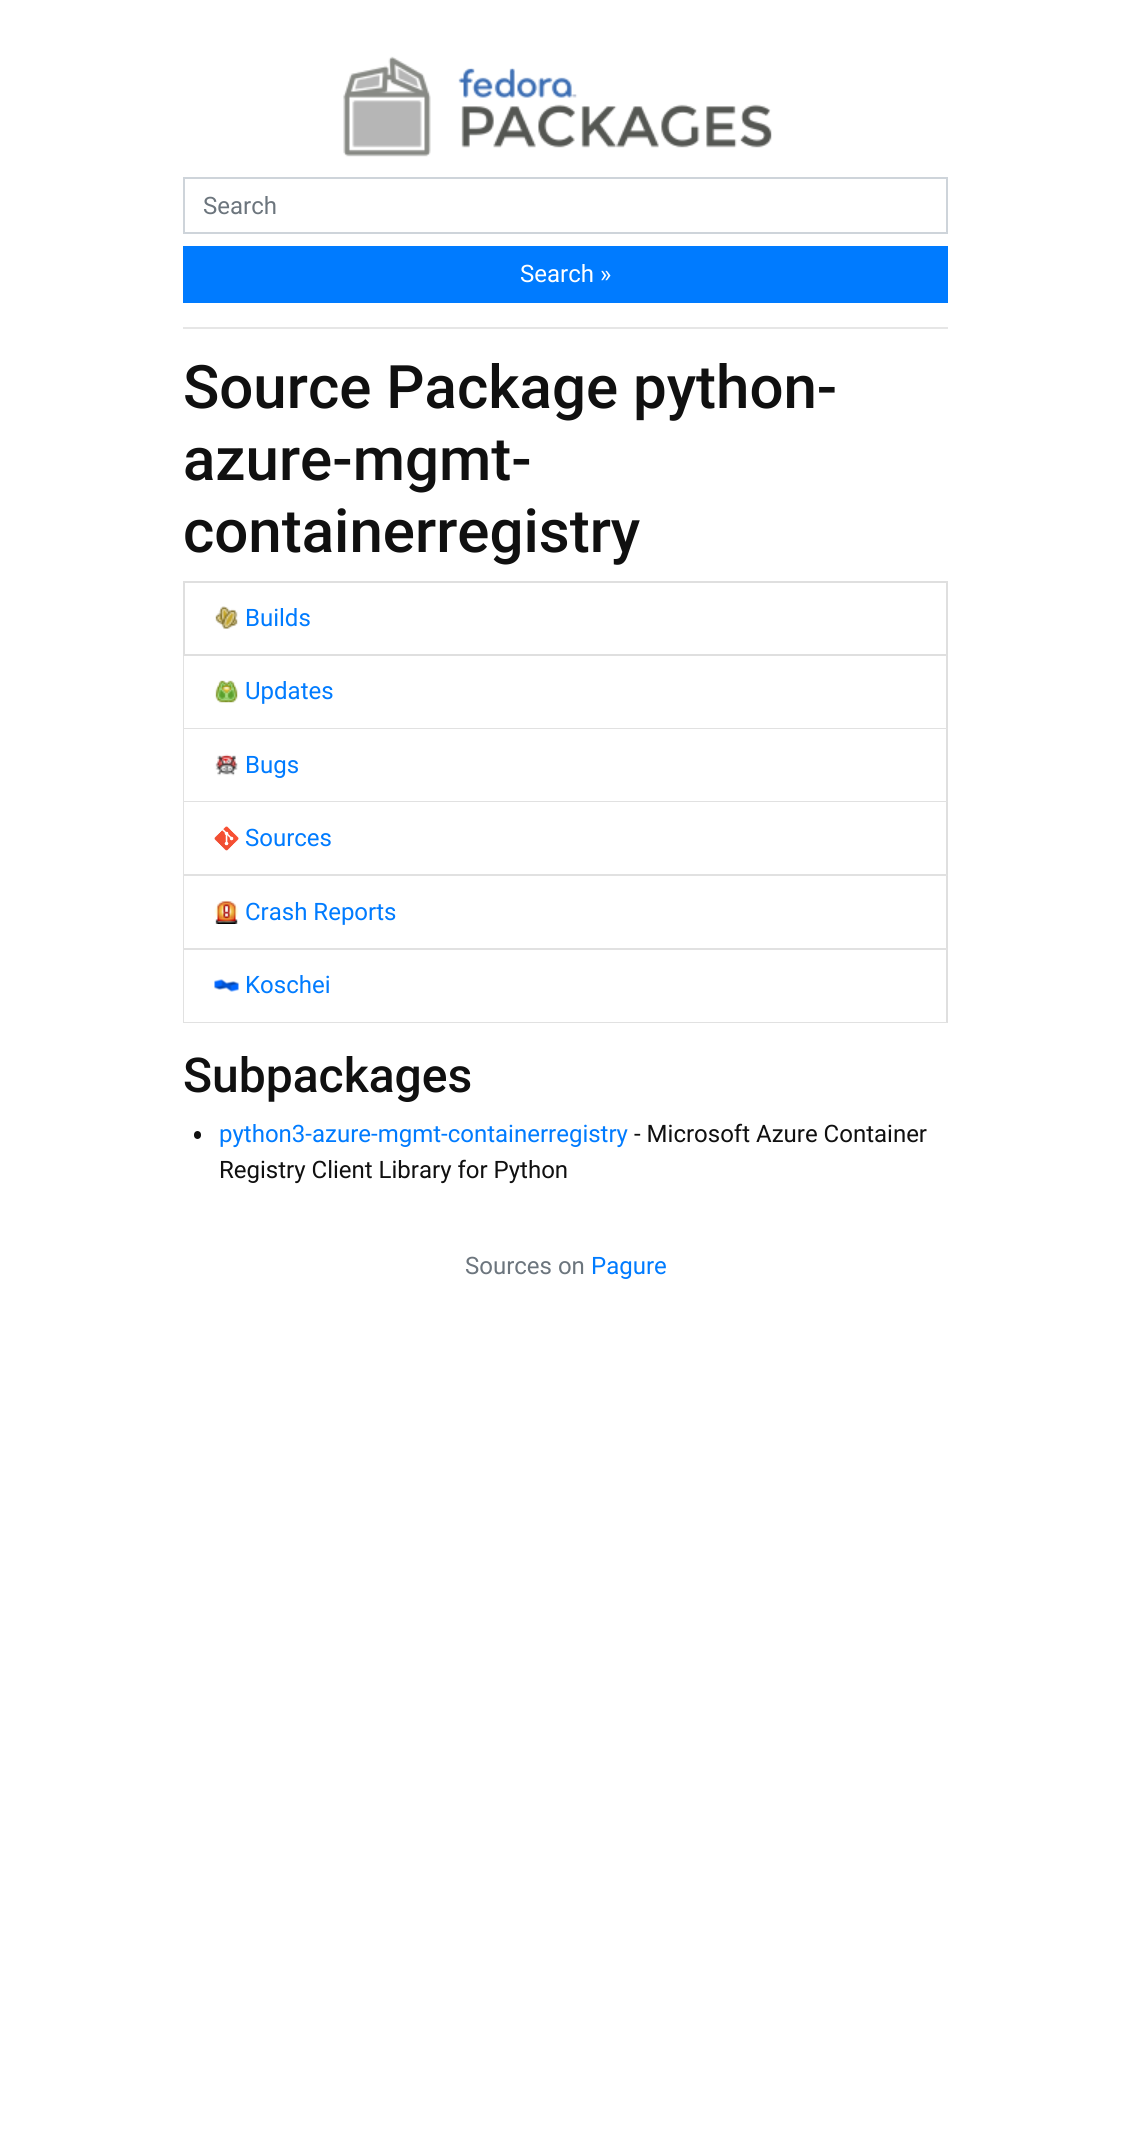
#include <cairo.h>
#include <math.h>
#include <stddef.h>


static void set_color(cairo_t *cr, unsigned color) {
    cairo_set_source_rgb(cr, (color >> 16) / 255.0, (color >> 8 & 255) / 255.0, (color & 255) / 255.0);
}

static void draw_text(cairo_t *cr, double x, double y, const char *s, const char *family, double size, int italic, int bold, unsigned color) {
    cairo_select_font_face(cr, family, italic ? CAIRO_FONT_SLANT_ITALIC : CAIRO_FONT_SLANT_NORMAL,
        bold ? CAIRO_FONT_WEIGHT_BOLD : CAIRO_FONT_WEIGHT_NORMAL);
    cairo_set_font_size(cr, size);
    set_color(cr, color);
    cairo_move_to(cr, x, y);
    cairo_show_text(cr, s);
}

static void fill_rect(cairo_t *cr, double x, double y, double w, double h, unsigned color) {
    set_color(cr, color);
    cairo_rectangle(cr, x, y, w, h);
    cairo_fill(cr);
}

static void rounded_rect(cairo_t *cr, double x, double y, double w, double h, double r) {
    cairo_new_sub_path(cr);
    cairo_arc(cr, x + w - r, y + h - r, r, 0, M_PI / 2);
    cairo_arc(cr, x + r, y + h - r, r, M_PI / 2, M_PI);
    cairo_arc(cr, x + r, y + r, r, M_PI, 1.5 * M_PI);
    cairo_arc(cr, x + w - r, y + r, r, 1.5 * M_PI, 2 * M_PI);
    cairo_close_path(cr);
}

static void draw_image(cairo_t *cr, const char *path, double x, double y, double w, double h) {
    cairo_surface_t *image = cairo_image_surface_create_from_png(path);
    cairo_save(cr);
    cairo_set_source_surface(cr, image, x, y);
    cairo_rectangle(cr, x, y, w, h);
    cairo_fill(cr);
    cairo_restore(cr);
    cairo_surface_destroy(image);
}

int main(void) {
    cairo_surface_t *surface = cairo_image_surface_create(CAIRO_FORMAT_RGB24, 1131, 2135);
    cairo_t *cr = cairo_create(surface);
    cairo_font_options_t *options = cairo_font_options_create();
    cairo_font_options_set_hint_metrics(options, CAIRO_HINT_METRICS_OFF);
    cairo_font_options_set_hint_style(options, CAIRO_HINT_STYLE_NONE);
    cairo_set_font_options(cr, options);
    cairo_set_miter_limit(cr, 4);
    set_color(cr, 0xFFFFFF);
    cairo_paint(cr);
    draw_image(cr, "assets/img1.png", 343, 56, 429, 101);
    cairo_rectangle(cr, 184, 178, 763, 55);
    set_color(cr, 0xCED4DA);
    cairo_stroke(cr);
    draw_text(cr, 203, 214, "Search", "Roboto", 24, 0, 0, 0x6C757D);
    fill_rect(cr, 183, 246, 765, 57, 0x007BFF);
    draw_text(cr, 520, 282, "Search »", "Roboto", 24, 0, 0, 0xFFFFFF);
    fill_rect(cr, 183, 327, 765, 2, 0xE6E6E6);
    draw_text(cr, 183, 408, "Source Package python-", "Roboto Medium", 60, 0, 0, 0x101010);
    draw_text(cr, 183, 480, "azure-mgmt-", "Roboto Medium", 60, 0, 0, 0x101010);
    draw_text(cr, 183, 552, "containerregistry", "Roboto Medium", 60, 0, 0, 0x101010);
    cairo_rectangle(cr, 184, 582, 763, 73);
    set_color(cr, 0xDFDFDF);
    cairo_stroke(cr);
    draw_image(cr, "assets/img2.png", 215, 606, 23, 23);
    draw_text(cr, 245, 626, "Builds", "Roboto", 24, 0, 0, 0x007BFF);
    set_color(cr, 0xDFDFDF);
    cairo_new_path(cr);
    cairo_move_to(cr, 948, 656);
    cairo_line_to(cr, 948, 729);
    cairo_line_to(cr, 946, 728);
    cairo_line_to(cr, 946, 656);
    cairo_close_path(cr);
    cairo_fill(cr);
    cairo_set_source_rgba(cr, 0, 0, 0, 0.12);
    cairo_new_path(cr);
    cairo_move_to(cr, 948, 729);
    cairo_line_to(cr, 183, 729);
    cairo_line_to(cr, 184, 728);
    cairo_line_to(cr, 946, 728);
    cairo_close_path(cr);
    cairo_fill(cr);
    cairo_new_path(cr);
    cairo_move_to(cr, 183, 729);
    cairo_line_to(cr, 183, 656);
    cairo_line_to(cr, 184, 656);
    cairo_line_to(cr, 184, 728);
    cairo_close_path(cr);
    cairo_fill(cr);
    draw_image(cr, "assets/img3.png", 215, 680, 23, 23);
    draw_text(cr, 245, 699, "Updates", "Roboto", 24, 0, 0, 0x007BFF);
    set_color(cr, 0xDFDFDF);
    cairo_new_path(cr);
    cairo_move_to(cr, 948, 729);
    cairo_line_to(cr, 948, 802);
    cairo_line_to(cr, 946, 801);
    cairo_line_to(cr, 946, 729);
    cairo_close_path(cr);
    cairo_fill(cr);
    cairo_set_source_rgba(cr, 0, 0, 0, 0.12);
    cairo_new_path(cr);
    cairo_move_to(cr, 948, 802);
    cairo_line_to(cr, 183, 802);
    cairo_line_to(cr, 184, 801);
    cairo_line_to(cr, 946, 801);
    cairo_close_path(cr);
    cairo_fill(cr);
    cairo_new_path(cr);
    cairo_move_to(cr, 183, 802);
    cairo_line_to(cr, 183, 729);
    cairo_line_to(cr, 184, 729);
    cairo_line_to(cr, 184, 801);
    cairo_close_path(cr);
    cairo_fill(cr);
    draw_image(cr, "assets/img4.png", 215, 754, 23, 22);
    draw_text(cr, 245, 773, "Bugs", "Roboto", 24, 0, 0, 0x007BFF);
    set_color(cr, 0xDFDFDF);
    cairo_new_path(cr);
    cairo_move_to(cr, 948, 802);
    cairo_line_to(cr, 948, 876);
    cairo_line_to(cr, 946, 874);
    cairo_line_to(cr, 946, 802);
    cairo_close_path(cr);
    cairo_fill(cr);
    cairo_set_source_rgba(cr, 0, 0, 0, 0.12);
    cairo_new_path(cr);
    cairo_move_to(cr, 948, 876);
    cairo_line_to(cr, 183, 876);
    cairo_line_to(cr, 184, 874);
    cairo_line_to(cr, 946, 874);
    cairo_close_path(cr);
    cairo_fill(cr);
    cairo_new_path(cr);
    cairo_move_to(cr, 183, 876);
    cairo_line_to(cr, 183, 802);
    cairo_line_to(cr, 184, 802);
    cairo_line_to(cr, 184, 874);
    cairo_close_path(cr);
    cairo_fill(cr);
    draw_image(cr, "assets/img5.png", 214, 826, 25, 25);
    draw_text(cr, 245, 846, "Sources", "Roboto", 24, 0, 0, 0x007BFF);
    set_color(cr, 0xDFDFDF);
    cairo_new_path(cr);
    cairo_move_to(cr, 948, 876);
    cairo_line_to(cr, 948, 950);
    cairo_line_to(cr, 946, 948);
    cairo_line_to(cr, 946, 876);
    cairo_close_path(cr);
    cairo_fill(cr);
    cairo_set_source_rgba(cr, 0, 0, 0, 0.12);
    cairo_new_path(cr);
    cairo_move_to(cr, 948, 950);
    cairo_line_to(cr, 183, 950);
    cairo_line_to(cr, 184, 948);
    cairo_line_to(cr, 946, 948);
    cairo_close_path(cr);
    cairo_fill(cr);
    cairo_new_path(cr);
    cairo_move_to(cr, 183, 950);
    cairo_line_to(cr, 183, 876);
    cairo_line_to(cr, 184, 876);
    cairo_line_to(cr, 184, 948);
    cairo_close_path(cr);
    cairo_fill(cr);
    draw_image(cr, "assets/img6.png", 214, 900, 25, 24);
    draw_text(cr, 245, 920, "Crash Reports", "Roboto", 24, 0, 0, 0x007BFF);
    set_color(cr, 0xDFDFDF);
    cairo_new_path(cr);
    cairo_move_to(cr, 948, 950);
    cairo_line_to(cr, 948, 1023);
    cairo_line_to(cr, 946, 1022);
    cairo_line_to(cr, 946, 950);
    cairo_close_path(cr);
    cairo_fill(cr);
    cairo_set_source_rgba(cr, 0, 0, 0, 0.12);
    cairo_new_path(cr);
    cairo_move_to(cr, 948, 1023);
    cairo_line_to(cr, 183, 1023);
    cairo_line_to(cr, 184, 1022);
    cairo_line_to(cr, 946, 1022);
    cairo_close_path(cr);
    cairo_fill(cr);
    cairo_new_path(cr);
    cairo_move_to(cr, 183, 1023);
    cairo_line_to(cr, 183, 950);
    cairo_line_to(cr, 184, 950);
    cairo_line_to(cr, 184, 1022);
    cairo_close_path(cr);
    cairo_fill(cr);
    draw_image(cr, "assets/img7.png", 214, 979, 25, 13);
    draw_text(cr, 245, 993, "Koschei", "Roboto", 24, 0, 0, 0x007BFF);
    draw_text(cr, 183, 1092, "Subpackages", "Roboto Medium", 48, 0, 0, 0x101010);
    rounded_rect(cr, 194, 1131, 7, 8, 3.5);
    cairo_fill(cr);
    draw_text(cr, 219, 1142, "python3-azure-mgmt-containerregistry", "Roboto", 24, 0, 0, 0x007BFF);
    draw_text(cr, 634, 1142, "- Microsoft Azure Container", "Roboto", 24, 0, 0, 0x101010);
    draw_text(cr, 219, 1178, "Registry Client Library for Python", "Roboto", 24, 0, 0, 0x101010);
    draw_text(cr, 465, 1274, "Sources on", "Roboto", 24, 0, 0, 0x6C757D);
    draw_text(cr, 591, 1274, "Pagure", "Roboto", 24, 0, 0, 0x007BFF);
    cairo_surface_write_to_png(surface, "output.png");
    cairo_font_options_destroy(options);
    cairo_destroy(cr);
    cairo_surface_destroy(surface);
    return 0;
}
